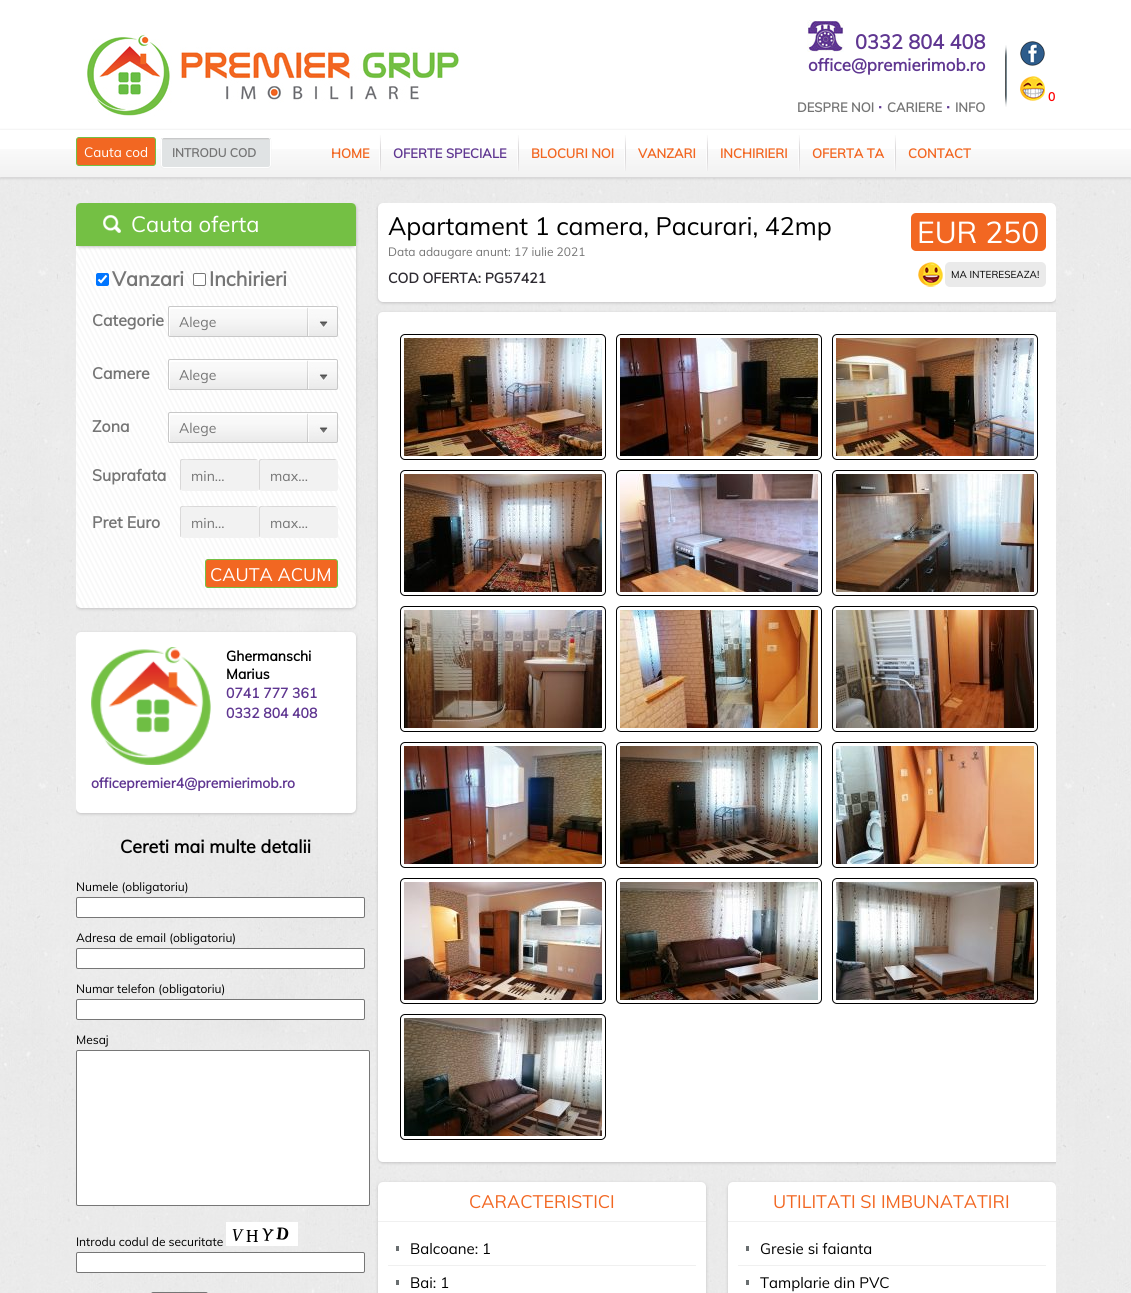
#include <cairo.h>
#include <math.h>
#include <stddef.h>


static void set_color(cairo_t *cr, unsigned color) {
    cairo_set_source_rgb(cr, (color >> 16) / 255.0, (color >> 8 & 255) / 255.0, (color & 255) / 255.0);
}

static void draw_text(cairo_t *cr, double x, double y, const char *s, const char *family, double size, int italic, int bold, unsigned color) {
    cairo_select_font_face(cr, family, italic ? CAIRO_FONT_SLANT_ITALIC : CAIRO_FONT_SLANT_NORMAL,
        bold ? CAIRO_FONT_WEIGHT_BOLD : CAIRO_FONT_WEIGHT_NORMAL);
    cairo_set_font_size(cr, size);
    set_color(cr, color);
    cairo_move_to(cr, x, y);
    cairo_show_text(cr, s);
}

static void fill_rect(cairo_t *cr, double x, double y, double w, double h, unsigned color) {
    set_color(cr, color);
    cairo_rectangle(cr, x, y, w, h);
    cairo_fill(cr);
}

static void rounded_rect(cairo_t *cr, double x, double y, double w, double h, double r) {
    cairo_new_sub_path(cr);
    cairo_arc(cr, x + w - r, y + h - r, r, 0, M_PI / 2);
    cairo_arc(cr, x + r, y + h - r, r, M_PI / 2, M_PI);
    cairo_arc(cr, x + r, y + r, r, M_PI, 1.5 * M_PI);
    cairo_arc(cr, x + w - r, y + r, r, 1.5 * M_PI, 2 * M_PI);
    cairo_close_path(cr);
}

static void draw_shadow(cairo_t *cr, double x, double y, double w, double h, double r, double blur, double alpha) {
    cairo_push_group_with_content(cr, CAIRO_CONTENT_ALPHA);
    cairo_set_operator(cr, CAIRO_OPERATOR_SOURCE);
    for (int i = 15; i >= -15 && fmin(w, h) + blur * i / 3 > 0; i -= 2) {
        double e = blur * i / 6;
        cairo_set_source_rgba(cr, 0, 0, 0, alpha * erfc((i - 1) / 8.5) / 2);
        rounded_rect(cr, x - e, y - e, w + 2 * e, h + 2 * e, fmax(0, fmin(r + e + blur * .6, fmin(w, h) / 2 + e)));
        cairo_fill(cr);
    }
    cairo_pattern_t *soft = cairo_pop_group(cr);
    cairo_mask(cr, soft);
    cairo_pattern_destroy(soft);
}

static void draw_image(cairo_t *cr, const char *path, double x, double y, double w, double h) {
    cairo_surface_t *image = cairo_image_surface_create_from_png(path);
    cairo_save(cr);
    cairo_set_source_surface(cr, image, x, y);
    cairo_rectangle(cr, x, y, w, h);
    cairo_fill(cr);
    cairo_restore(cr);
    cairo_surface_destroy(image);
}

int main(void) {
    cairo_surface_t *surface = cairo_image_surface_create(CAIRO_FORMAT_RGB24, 1131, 1293);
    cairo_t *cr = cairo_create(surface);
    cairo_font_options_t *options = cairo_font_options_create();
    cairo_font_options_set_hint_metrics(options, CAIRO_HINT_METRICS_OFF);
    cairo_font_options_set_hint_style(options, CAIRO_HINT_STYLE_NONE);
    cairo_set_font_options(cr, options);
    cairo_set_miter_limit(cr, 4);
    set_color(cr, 0xFFFFFF);
    cairo_paint(cr);
    draw_image(cr, "assets/img1.png", 0, 178, 1131, 1115);
    draw_image(cr, "assets/img2.png", 87, 33, 372, 83);
    draw_image(cr, "assets/img3.png", 807, 20, 37, 32);
    draw_text(cr, 855, 49, "0332 804 408", "Muli", 20, 0, 1, 0x5F3691);
    draw_text(cr, 808, 71, "office@premierimob.ro", "Muli", 17, 0, 1, 0x5F3691);
    draw_text(cr, 797, 112, "DESPRE NOI", "Muli", 13, 0, 1, 0x757575);
    draw_text(cr, 878, 112, "·", "Muli", 17, 0, 1, 0x5F3691);
    draw_text(cr, 887, 112, "CARIERE", "Muli", 13, 0, 1, 0x757575);
    draw_text(cr, 946, 112, "·", "Muli", 17, 0, 1, 0x5F3691);
    draw_text(cr, 955, 112, "INFO", "Muli", 13, 0, 1, 0x757575);
    draw_image(cr, "assets/img4.png", 1005, 45, 2, 62);
    draw_image(cr, "assets/img5.png", 1020, 41, 25, 25);
    draw_image(cr, "assets/img6.png", 1020, 76, 25, 25);
    draw_text(cr, 1048, 101, "0", "Muli", 12, 0, 1, 0xFF0000);
    cairo_save(cr);
    cairo_set_fill_rule(cr, CAIRO_FILL_RULE_EVEN_ODD);
    cairo_new_path(cr);
    cairo_move_to(cr, 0, 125);
    cairo_line_to(cr, 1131, 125);
    cairo_line_to(cr, 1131, 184);
    cairo_line_to(cr, 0, 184);
    cairo_close_path(cr);
    cairo_move_to(cr, 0, 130);
    cairo_line_to(cr, 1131, 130);
    cairo_line_to(cr, 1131, 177);
    cairo_line_to(cr, 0, 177);
    cairo_close_path(cr);
    cairo_clip(cr);
    set_color(cr, 0xC3C2C3);
    draw_shadow(cr, 0, 131, 1131, 47, 0, 1.5, 1);
    cairo_restore(cr);
    draw_image(cr, "assets/img7.png", 0, 149, 1131, 28);
    set_color(cr, 0xF26722);
    rounded_rect(cr, 76.5, 137.5, 79, 28, 2.5);
    cairo_fill_preserve(cr);
    set_color(cr, 0x74C044);
    cairo_set_line_width(cr, 1);
    cairo_stroke(cr);
    draw_text(cr, 84, 157, "Cauta cod", "Muli", 13.5, 0, 0, 0xFFFFFF);
    set_color(cr, 0xF0F0F0);
    draw_shadow(cr, 161, 138, 110, 31, 3, 0.5, 1);
    draw_image(cr, "assets/img8.png", 161, 138, 110, 30);
    rounded_rect(cr, 161.5, 137.5, 109, 30, 2.5);
    set_color(cr, 0xFFFFFF);
    cairo_stroke(cr);
    draw_text(cr, 172, 157, "INTRODU COD", "Muli", 12, 0, 1, 0x757575);
    draw_image(cr, "assets/img9.png", 379, 135, 2, 36);
    draw_text(cr, 331, 158, "HOME", "Muli", 13, 0, 1, 0xF26722);
    draw_image(cr, "assets/img9.png", 517, 135, 2, 36);
    draw_text(cr, 393, 158, "OFERTE SPECIALE", "Muli", 13, 0, 1, 0x5F3691);
    draw_image(cr, "assets/img9.png", 624, 135, 2, 36);
    draw_text(cr, 531, 158, "BLOCURI NOI", "Muli", 13, 0, 1, 0xF26722);
    draw_image(cr, "assets/img9.png", 706, 135, 2, 36);
    draw_text(cr, 638, 158, "VANZARI", "Muli", 13, 0, 1, 0xF26722);
    draw_image(cr, "assets/img9.png", 798, 135, 2, 36);
    draw_text(cr, 720, 158, "INCHIRIERI", "Muli", 13, 0, 1, 0xF26722);
    draw_image(cr, "assets/img9.png", 894, 135, 2, 36);
    draw_text(cr, 812, 158, "OFERTA TA", "Muli", 13, 0, 1, 0xF26722);
    draw_text(cr, 908, 158, "CONTACT", "Muli", 13, 0, 1, 0xF26722);
    cairo_save(cr);
    cairo_rectangle(cr, 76, 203, 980, 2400);
    cairo_clip(cr);
    set_color(cr, 0xC3C2C3);
    draw_shadow(cr, 76, 204, 280, 405, 5, 1.5, 1);
    cairo_restore(cr);
    draw_image(cr, "assets/img10.png", 76, 203, 280, 405);
    cairo_save(cr);
    cairo_rectangle(cr, 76, 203, 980, 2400);
    cairo_clip(cr);
    set_color(cr, 0xC3C2C3);
    draw_shadow(cr, 76, 204, 280, 43, 5, 1.5, 1);
    cairo_restore(cr);
    set_color(cr, 0x74C044);
    cairo_new_path(cr);
    cairo_move_to(cr, 81, 203);
    cairo_line_to(cr, 351, 203);
    cairo_curve_to(cr, 354, 203, 356, 205, 356, 208);
    cairo_line_to(cr, 356, 246);
    cairo_line_to(cr, 76, 246);
    cairo_line_to(cr, 76, 208);
    cairo_curve_to(cr, 76, 205, 78, 203, 81, 203);
    cairo_close_path(cr);
    cairo_fill(cr);
    draw_image(cr, "assets/img11.png", 103, 215, 18, 18);
    draw_text(cr, 131, 232, "Cauta oferta", "Muli", 22, 0, 0, 0xFFFFFF);
    set_color(cr, 0x0075FF);
    rounded_rect(cr, 96, 273, 13, 13, 2);
    cairo_fill(cr);
    cairo_new_path(cr);
    cairo_move_to(cr, 98.5, 279.5);
    cairo_line_to(cr, 101, 282);
    cairo_line_to(cr, 106.5, 275.5);
    set_color(cr, 0xFFFFFF);
    cairo_set_line_width(cr, 2.1);
    cairo_stroke(cr);
    draw_text(cr, 112, 286, "Vanzari", "Muli", 20, 0, 1, 0x757575);
    set_color(cr, 0xFFFFFF);
    rounded_rect(cr, 193.5, 273.5, 12, 12, 1.5);
    cairo_fill_preserve(cr);
    set_color(cr, 0x767676);
    cairo_set_line_width(cr, 1);
    cairo_stroke(cr);
    draw_text(cr, 209, 286, "Inchirieri", "Muli", 20, 0, 1, 0x757575);
    draw_text(cr, 92, 326, "Categorie", "Muli", 16, 0, 1, 0x757575);
    draw_image(cr, "assets/img12.png", 169, 307, 169, 30);
    rounded_rect(cr, 168.5, 306.5, 169, 30, 1.5);
    set_color(cr, 0xC8C8C8);
    cairo_stroke(cr);
    draw_text(cr, 179, 327, "Alege", "Muli", 14, 0, 0, 0x757575);
    draw_text(cr, 92, 379, "Camere", "Muli", 16, 0, 1, 0x757575);
    draw_image(cr, "assets/img13.png", 169, 360, 169, 30);
    rounded_rect(cr, 168.5, 359.5, 169, 30, 1.5);
    set_color(cr, 0xC8C8C8);
    cairo_stroke(cr);
    draw_text(cr, 179, 380, "Alege", "Muli", 14, 0, 0, 0x757575);
    draw_text(cr, 92, 432, "Zona", "Muli", 16, 0, 1, 0x757575);
    draw_image(cr, "assets/img14.png", 169, 413, 169, 30);
    rounded_rect(cr, 168.5, 412.5, 169, 30, 1.5);
    set_color(cr, 0xC8C8C8);
    cairo_stroke(cr);
    draw_text(cr, 179, 433, "Alege", "Muli", 14, 0, 0, 0x757575);
    draw_text(cr, 92, 481, "Suprafata", "Muli", 16, 0, 1, 0x757575);
    set_color(cr, 0xD9D8D8);
    cairo_new_path(cr);
    cairo_move_to(cr, 182, 459);
    cairo_curve_to(cr, 181, 459, 180, 460, 180, 461);
    cairo_line_to(cr, 180, 488);
    cairo_curve_to(cr, 180, 489, 180, 490, 181, 490);
    cairo_line_to(cr, 181, 471);
    cairo_curve_to(cr, 181, 457, 179, 460, 195, 460);
    cairo_line_to(cr, 258, 460);
    cairo_line_to(cr, 256, 459);
    cairo_close_path(cr);
    cairo_fill(cr);
    set_color(cr, 0xF2F2F2);
    rounded_rect(cr, 181, 460, 78, 31, 2);
    cairo_fill(cr);
    draw_text(cr, 191, 481, "min...", "Muli", 14, 0, 0, 0x757575);
    set_color(cr, 0xD9D8D8);
    cairo_new_path(cr);
    cairo_move_to(cr, 261, 459);
    cairo_curve_to(cr, 260, 459, 259, 460, 259, 461);
    cairo_line_to(cr, 259, 488);
    cairo_curve_to(cr, 259, 489, 259, 490, 260, 490);
    cairo_line_to(cr, 260, 471);
    cairo_curve_to(cr, 260, 457, 258, 460, 274, 460);
    cairo_line_to(cr, 337, 460);
    cairo_line_to(cr, 335, 459);
    cairo_close_path(cr);
    cairo_fill(cr);
    set_color(cr, 0xF2F2F2);
    rounded_rect(cr, 260, 460, 78, 31, 2);
    cairo_fill(cr);
    draw_text(cr, 270, 481, "max...", "Muli", 14, 0, 0, 0x757575);
    draw_text(cr, 92, 528, "Pret Euro", "Muli", 16, 0, 1, 0x757575);
    set_color(cr, 0xD9D8D8);
    cairo_new_path(cr);
    cairo_move_to(cr, 182, 506);
    cairo_curve_to(cr, 181, 506, 180, 507, 180, 508);
    cairo_line_to(cr, 180, 535);
    cairo_curve_to(cr, 180, 536, 180, 537, 181, 537);
    cairo_line_to(cr, 181, 518);
    cairo_curve_to(cr, 181, 504, 179, 507, 195, 507);
    cairo_line_to(cr, 258, 507);
    cairo_line_to(cr, 256, 506);
    cairo_close_path(cr);
    cairo_fill(cr);
    set_color(cr, 0xF2F2F2);
    rounded_rect(cr, 181, 507, 78, 31, 2);
    cairo_fill(cr);
    draw_text(cr, 191, 528, "min...", "Muli", 14, 0, 0, 0x757575);
    set_color(cr, 0xD9D8D8);
    cairo_new_path(cr);
    cairo_move_to(cr, 261, 506);
    cairo_curve_to(cr, 260, 506, 259, 507, 259, 508);
    cairo_line_to(cr, 259, 535);
    cairo_curve_to(cr, 259, 536, 259, 537, 260, 537);
    cairo_line_to(cr, 260, 518);
    cairo_curve_to(cr, 260, 504, 258, 507, 274, 507);
    cairo_line_to(cr, 337, 507);
    cairo_line_to(cr, 335, 506);
    cairo_close_path(cr);
    cairo_fill(cr);
    set_color(cr, 0xF2F2F2);
    rounded_rect(cr, 260, 507, 78, 31, 2);
    cairo_fill(cr);
    draw_text(cr, 270, 528, "max...", "Muli", 14, 0, 0, 0x757575);
    set_color(cr, 0xF26722);
    rounded_rect(cr, 205.5, 559.5, 132, 28, 2.5);
    cairo_fill_preserve(cr);
    set_color(cr, 0x74C044);
    cairo_stroke(cr);
    draw_text(cr, 210, 581, "CAUTA ACUM", "Muli", 18, 0, 0, 0xFFFFFF);
    cairo_save(cr);
    cairo_rectangle(cr, 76, 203, 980, 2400);
    cairo_clip(cr);
    set_color(cr, 0xC3C2C3);
    draw_shadow(cr, 76, 633, 280, 181, 5, 1.5, 1);
    cairo_restore(cr);
    rounded_rect(cr, 76, 632, 280, 181, 5);
    cairo_fill(cr);
    draw_image(cr, "assets/img15.png", 91, 647, 120, 118);
    draw_text(cr, 226, 661, "Ghermanschi", "Muli", 14, 0, 1, 0x000000);
    draw_text(cr, 226, 679, "Marius", "Muli", 14, 0, 1, 0x000000);
    draw_text(cr, 226, 698, "0741 777 361", "Muli", 14, 0, 1, 0x5F3691);
    draw_text(cr, 226, 718, "0332 804 408", "Muli", 14, 0, 1, 0x5F3691);
    draw_text(cr, 91, 788, "officepremier4@premierimob.ro", "Muli", 14, 0, 1, 0x5F3691);
    draw_text(cr, 120, 853, "Cereti mai multe detalii", "Muli", 18, 0, 1, 0x000000);
    draw_text(cr, 76, 891, "Numele (obligatoriu)", "Muli", 12, 0, 0, 0x000000);
    set_color(cr, 0xFFFFFF);
    rounded_rect(cr, 76.5, 897.5, 288, 20, 1.5);
    cairo_fill_preserve(cr);
    set_color(cr, 0x767676);
    cairo_stroke(cr);
    draw_text(cr, 76, 942, "Adresa de email (obligatoriu)", "Muli", 12, 0, 0, 0x000000);
    set_color(cr, 0xFFFFFF);
    rounded_rect(cr, 76.5, 948.5, 288, 20, 1.5);
    cairo_fill_preserve(cr);
    set_color(cr, 0x767676);
    cairo_stroke(cr);
    draw_text(cr, 76, 993, "Numar telefon (obligatoriu)", "Muli", 12, 0, 0, 0x000000);
    set_color(cr, 0xFFFFFF);
    rounded_rect(cr, 76.5, 999.5, 288, 20, 1.5);
    cairo_fill_preserve(cr);
    set_color(cr, 0x767676);
    cairo_stroke(cr);
    draw_text(cr, 76, 1044, "Mesaj", "Muli", 12, 0, 0, 0x000000);
    set_color(cr, 0xFFFFFF);
    rounded_rect(cr, 76.5, 1050.5, 293, 155, 1.5);
    cairo_fill_preserve(cr);
    set_color(cr, 0x767676);
    cairo_stroke(cr);
    draw_text(cr, 76, 1246, "Introdu codul de securitate", "Muli", 12, 0, 0, 0x000000);
    draw_image(cr, "assets/img16.png", 226, 1222, 72, 24);
    set_color(cr, 0xFFFFFF);
    rounded_rect(cr, 76.5, 1252.5, 288, 20, 1.5);
    cairo_fill_preserve(cr);
    set_color(cr, 0x767676);
    cairo_stroke(cr);
    rounded_rect(cr, 151.5, 1292.5, 56, 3, 1.5);
    cairo_stroke(cr);
    cairo_save(cr);
    cairo_rectangle(cr, 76, 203, 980, 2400);
    cairo_clip(cr);
    set_color(cr, 0xC3C2C3);
    draw_shadow(cr, 378, 204, 678, 99, 5, 1.5, 1);
    cairo_restore(cr);
    set_color(cr, 0xFFFFFF);
    rounded_rect(cr, 378, 203, 678, 99, 5);
    cairo_fill(cr);
    draw_text(cr, 388, 235, "Apartament 1 camera, Pacurari, 42mp", "Muli", 25, 0, 0, 0x000000);
    set_color(cr, 0xF26722);
    rounded_rect(cr, 911, 213, 135, 38, 5);
    cairo_fill(cr);
    draw_text(cr, 917, 243, "EUR 250", "Muli", 30, 0, 0, 0xFFFFFF);
    draw_image(cr, "assets/img17.png", 918, 262, 25, 25);
    set_color(cr, 0xEAEAEA);
    rounded_rect(cr, 945, 262, 101, 25, 5);
    cairo_fill(cr);
    draw_text(cr, 951, 278, "MA INTERESEAZA!", "Muli", 10, 0, 0, 0x000000);
    draw_text(cr, 388, 256, "Data adaugare anunt: 17 iulie 2021", "Muli", 12, 0, 0, 0x757575);
    draw_text(cr, 388, 283, "COD OFERTA: PG57421", "Muli", 14, 0, 1, 0x2F2C33);
    cairo_save(cr);
    cairo_rectangle(cr, 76, 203, 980, 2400);
    cairo_clip(cr);
    set_color(cr, 0xC3C2C3);
    draw_shadow(cr, 378, 313, 692, 850, 5, 1.5, 1);
    cairo_restore(cr);
    set_color(cr, 0xFFFFFF);
    cairo_new_path(cr);
    cairo_move_to(cr, 383, 312);
    cairo_line_to(cr, 1056, 312);
    cairo_line_to(cr, 1056, 1162);
    cairo_line_to(cr, 383, 1162);
    cairo_curve_to(cr, 380, 1162, 378, 1160, 378, 1157);
    cairo_line_to(cr, 378, 317);
    cairo_curve_to(cr, 378, 314, 380, 312, 383, 312);
    cairo_close_path(cr);
    cairo_fill(cr);
    rounded_rect(cr, 400.5, 334.5, 205, 125, 4.5);
    set_color(cr, 0x000000);
    cairo_stroke(cr);
    draw_image(cr, "assets/img18.png", 404, 338, 198, 118);
    rounded_rect(cr, 616.5, 334.5, 205, 125, 4.5);
    cairo_stroke(cr);
    draw_image(cr, "assets/img19.png", 620, 338, 198, 118);
    rounded_rect(cr, 832.5, 334.5, 205, 125, 4.5);
    cairo_stroke(cr);
    draw_image(cr, "assets/img20.png", 836, 338, 198, 118);
    rounded_rect(cr, 400.5, 470.5, 205, 125, 4.5);
    cairo_stroke(cr);
    draw_image(cr, "assets/img21.png", 404, 474, 198, 118);
    rounded_rect(cr, 616.5, 470.5, 205, 125, 4.5);
    cairo_stroke(cr);
    draw_image(cr, "assets/img22.png", 620, 474, 198, 118);
    rounded_rect(cr, 832.5, 470.5, 205, 125, 4.5);
    cairo_stroke(cr);
    draw_image(cr, "assets/img23.png", 836, 474, 198, 118);
    rounded_rect(cr, 400.5, 606.5, 205, 125, 4.5);
    cairo_stroke(cr);
    draw_image(cr, "assets/img24.png", 404, 610, 198, 118);
    rounded_rect(cr, 616.5, 606.5, 205, 125, 4.5);
    cairo_stroke(cr);
    draw_image(cr, "assets/img25.png", 620, 610, 198, 118);
    rounded_rect(cr, 832.5, 606.5, 205, 125, 4.5);
    cairo_stroke(cr);
    draw_image(cr, "assets/img26.png", 836, 610, 198, 118);
    rounded_rect(cr, 400.5, 742.5, 205, 125, 4.5);
    cairo_stroke(cr);
    draw_image(cr, "assets/img27.png", 404, 746, 198, 118);
    rounded_rect(cr, 616.5, 742.5, 205, 125, 4.5);
    cairo_stroke(cr);
    draw_image(cr, "assets/img28.png", 620, 746, 198, 118);
    rounded_rect(cr, 832.5, 742.5, 205, 125, 4.5);
    cairo_stroke(cr);
    draw_image(cr, "assets/img29.png", 836, 746, 198, 118);
    rounded_rect(cr, 400.5, 878.5, 205, 125, 4.5);
    cairo_stroke(cr);
    draw_image(cr, "assets/img30.png", 404, 882, 198, 118);
    rounded_rect(cr, 616.5, 878.5, 205, 125, 4.5);
    cairo_stroke(cr);
    draw_image(cr, "assets/img31.png", 620, 882, 198, 118);
    rounded_rect(cr, 832.5, 878.5, 205, 125, 4.5);
    cairo_stroke(cr);
    draw_image(cr, "assets/img32.png", 836, 882, 198, 118);
    rounded_rect(cr, 400.5, 1014.5, 205, 125, 4.5);
    cairo_stroke(cr);
    draw_image(cr, "assets/img33.png", 404, 1018, 198, 118);
    set_color(cr, 0xC3C2C3);
    draw_shadow(cr, 378, 1183, 328, 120, 5, 1.5, 1);
    set_color(cr, 0xFFFFFF);
    rounded_rect(cr, 378, 1182, 328, 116, 5);
    cairo_fill(cr);
    fill_rect(cr, 378, 1221, 328, 1, 0xF0F0F0);
    draw_text(cr, 469, 1208, "CARACTERISTICI", "Muli", 18, 0, 0, 0xF26722);
    fill_rect(cr, 396, 1246, 3, 5, 0x696E70);
    fill_rect(cr, 388, 1265, 308, 1, 0xF0F0F0);
    draw_text(cr, 410, 1254, "Balcoane: 1", "Muli", 15, 0, 0, 0x000000);
    fill_rect(cr, 396, 1280, 3, 5, 0x696E70);
    draw_text(cr, 410, 1288, "Bai: 1", "Muli", 15, 0, 0, 0x000000);
    cairo_save(cr);
    cairo_rectangle(cr, 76, 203, 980, 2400);
    cairo_clip(cr);
    set_color(cr, 0xC3C2C3);
    draw_shadow(cr, 728, 1183, 328, 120, 5, 1.5, 1);
    cairo_restore(cr);
    set_color(cr, 0xFFFFFF);
    rounded_rect(cr, 728, 1182, 328, 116, 5);
    cairo_fill(cr);
    fill_rect(cr, 728, 1221, 328, 1, 0xF0F0F0);
    draw_text(cr, 773, 1208, "UTILITATI SI IMBUNATATIRI", "Muli", 18, 0, 0, 0xF26722);
    fill_rect(cr, 746, 1246, 3, 5, 0x696E70);
    fill_rect(cr, 738, 1265, 308, 1, 0xF0F0F0);
    draw_text(cr, 760, 1254, "Gresie si faianta", "Muli", 15, 0, 0, 0x000000);
    fill_rect(cr, 746, 1280, 3, 5, 0x696E70);
    draw_text(cr, 760, 1288, "Tamplarie din PVC", "Muli", 15, 0, 0, 0x000000);
    cairo_surface_write_to_png(surface, "output.png");
    cairo_font_options_destroy(options);
    cairo_destroy(cr);
    cairo_surface_destroy(surface);
    return 0;
}
